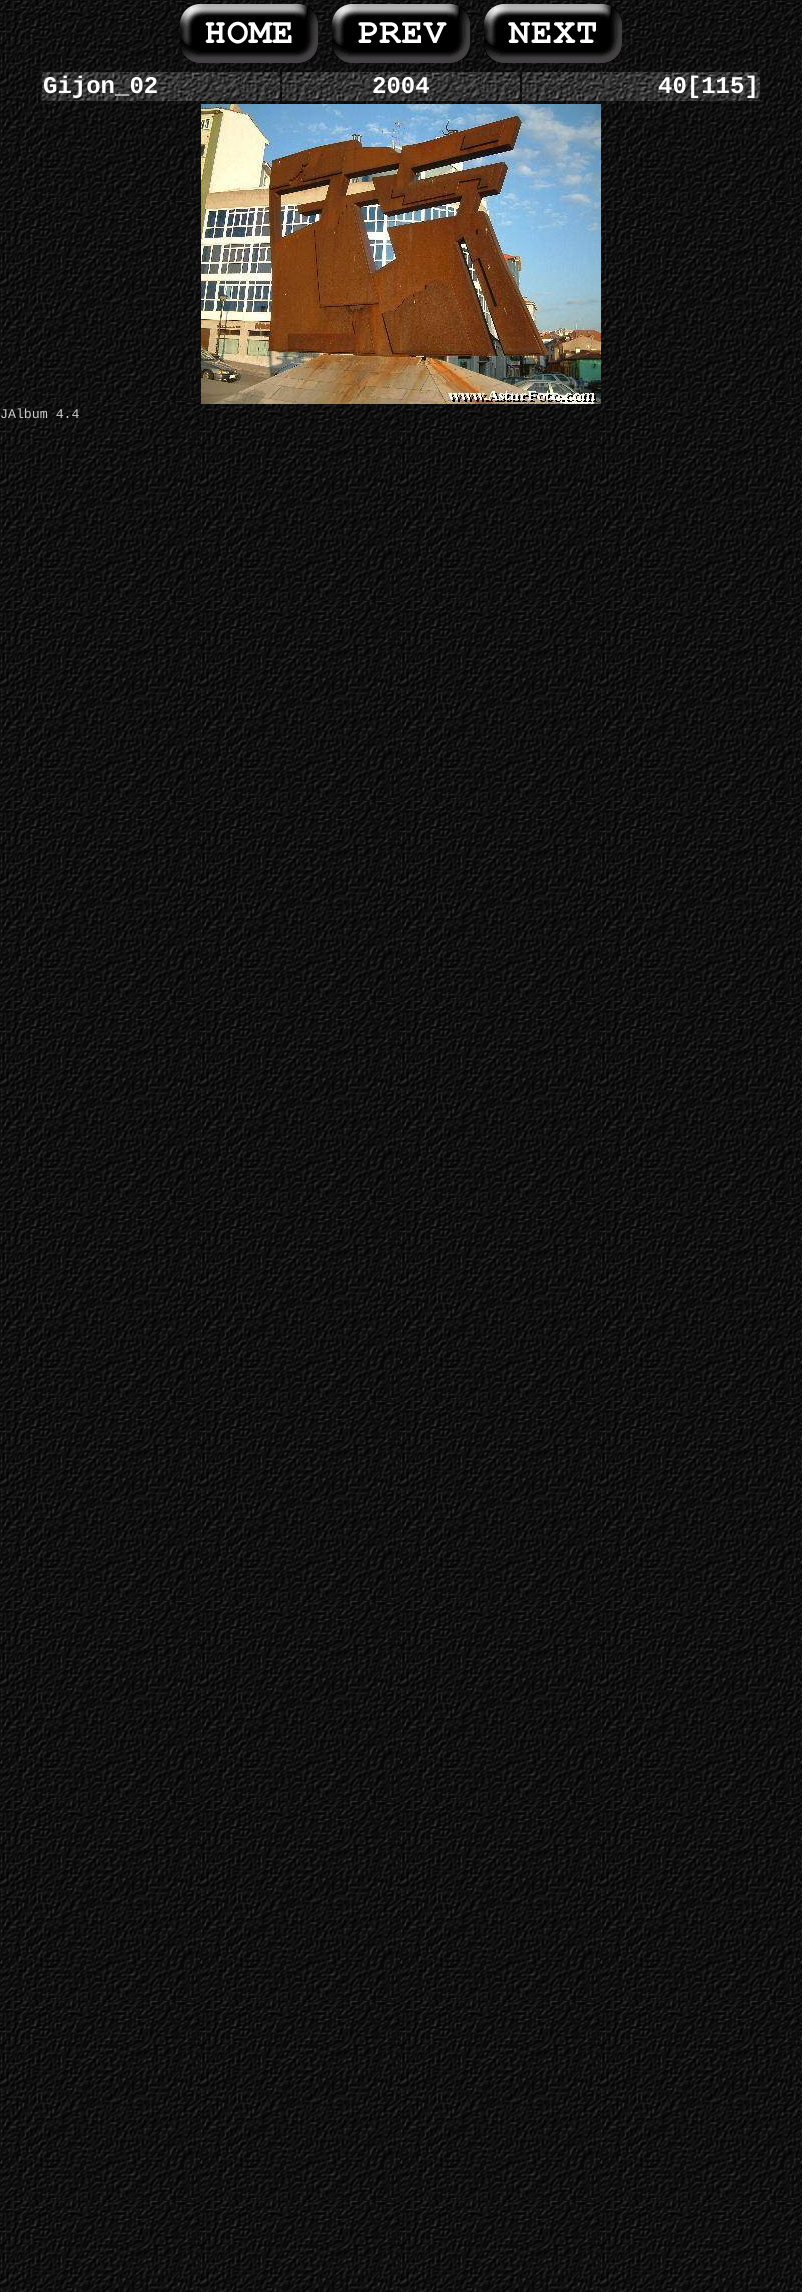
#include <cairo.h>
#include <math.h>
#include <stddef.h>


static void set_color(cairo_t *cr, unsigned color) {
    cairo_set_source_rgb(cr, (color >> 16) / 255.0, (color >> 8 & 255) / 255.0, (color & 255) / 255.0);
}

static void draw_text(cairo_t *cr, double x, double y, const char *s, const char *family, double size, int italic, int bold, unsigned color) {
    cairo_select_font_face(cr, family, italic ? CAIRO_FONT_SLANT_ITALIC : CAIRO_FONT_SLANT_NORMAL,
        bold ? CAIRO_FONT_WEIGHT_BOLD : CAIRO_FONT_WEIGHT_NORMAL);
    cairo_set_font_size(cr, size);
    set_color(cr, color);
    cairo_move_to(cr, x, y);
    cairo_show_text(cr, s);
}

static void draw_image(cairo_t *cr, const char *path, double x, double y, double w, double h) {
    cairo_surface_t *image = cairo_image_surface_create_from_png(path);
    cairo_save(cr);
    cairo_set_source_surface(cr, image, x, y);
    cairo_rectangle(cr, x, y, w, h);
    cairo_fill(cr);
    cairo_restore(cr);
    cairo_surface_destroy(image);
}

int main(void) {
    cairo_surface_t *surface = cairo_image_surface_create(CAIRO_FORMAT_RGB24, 802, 2292);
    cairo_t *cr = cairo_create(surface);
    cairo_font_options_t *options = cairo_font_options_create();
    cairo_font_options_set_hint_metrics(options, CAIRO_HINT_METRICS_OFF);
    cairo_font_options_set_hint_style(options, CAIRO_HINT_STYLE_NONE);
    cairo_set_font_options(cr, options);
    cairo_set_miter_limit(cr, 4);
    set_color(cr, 0xFFFFFF);
    cairo_paint(cr);
    draw_image(cr, "assets/img1.png", 0, 0, 802, 2292);
    draw_image(cr, "assets/img2.png", 180, 4, 138, 59);
    draw_image(cr, "assets/img3.png", 332, 4, 138, 59);
    draw_image(cr, "assets/img4.png", 484, 4, 138, 59);
    draw_image(cr, "assets/img5.png", 42, 72, 238, 29);
    draw_text(cr, 43, 93, "Gijon_02", "Liberation Mono", 24, 0, 1, 0xFFFFFF);
    draw_image(cr, "assets/img5.png", 282, 72, 238, 29);
    draw_text(cr, 372, 93, "2004", "Liberation Mono", 24, 0, 1, 0xFFFFFF);
    draw_image(cr, "assets/img5.png", 522, 72, 238, 29);
    draw_text(cr, 658, 93, "40[115]", "Liberation Mono", 24, 0, 1, 0xFFFFFF);
    draw_image(cr, "assets/img6.png", 201, 104, 400, 300);
    draw_text(cr, 0, 418, "JAlbum 4.4", "Liberation Mono", 13.25, 0, 0, 0xCCCCCC);
    cairo_surface_write_to_png(surface, "output.png");
    cairo_font_options_destroy(options);
    cairo_destroy(cr);
    cairo_surface_destroy(surface);
    return 0;
}
